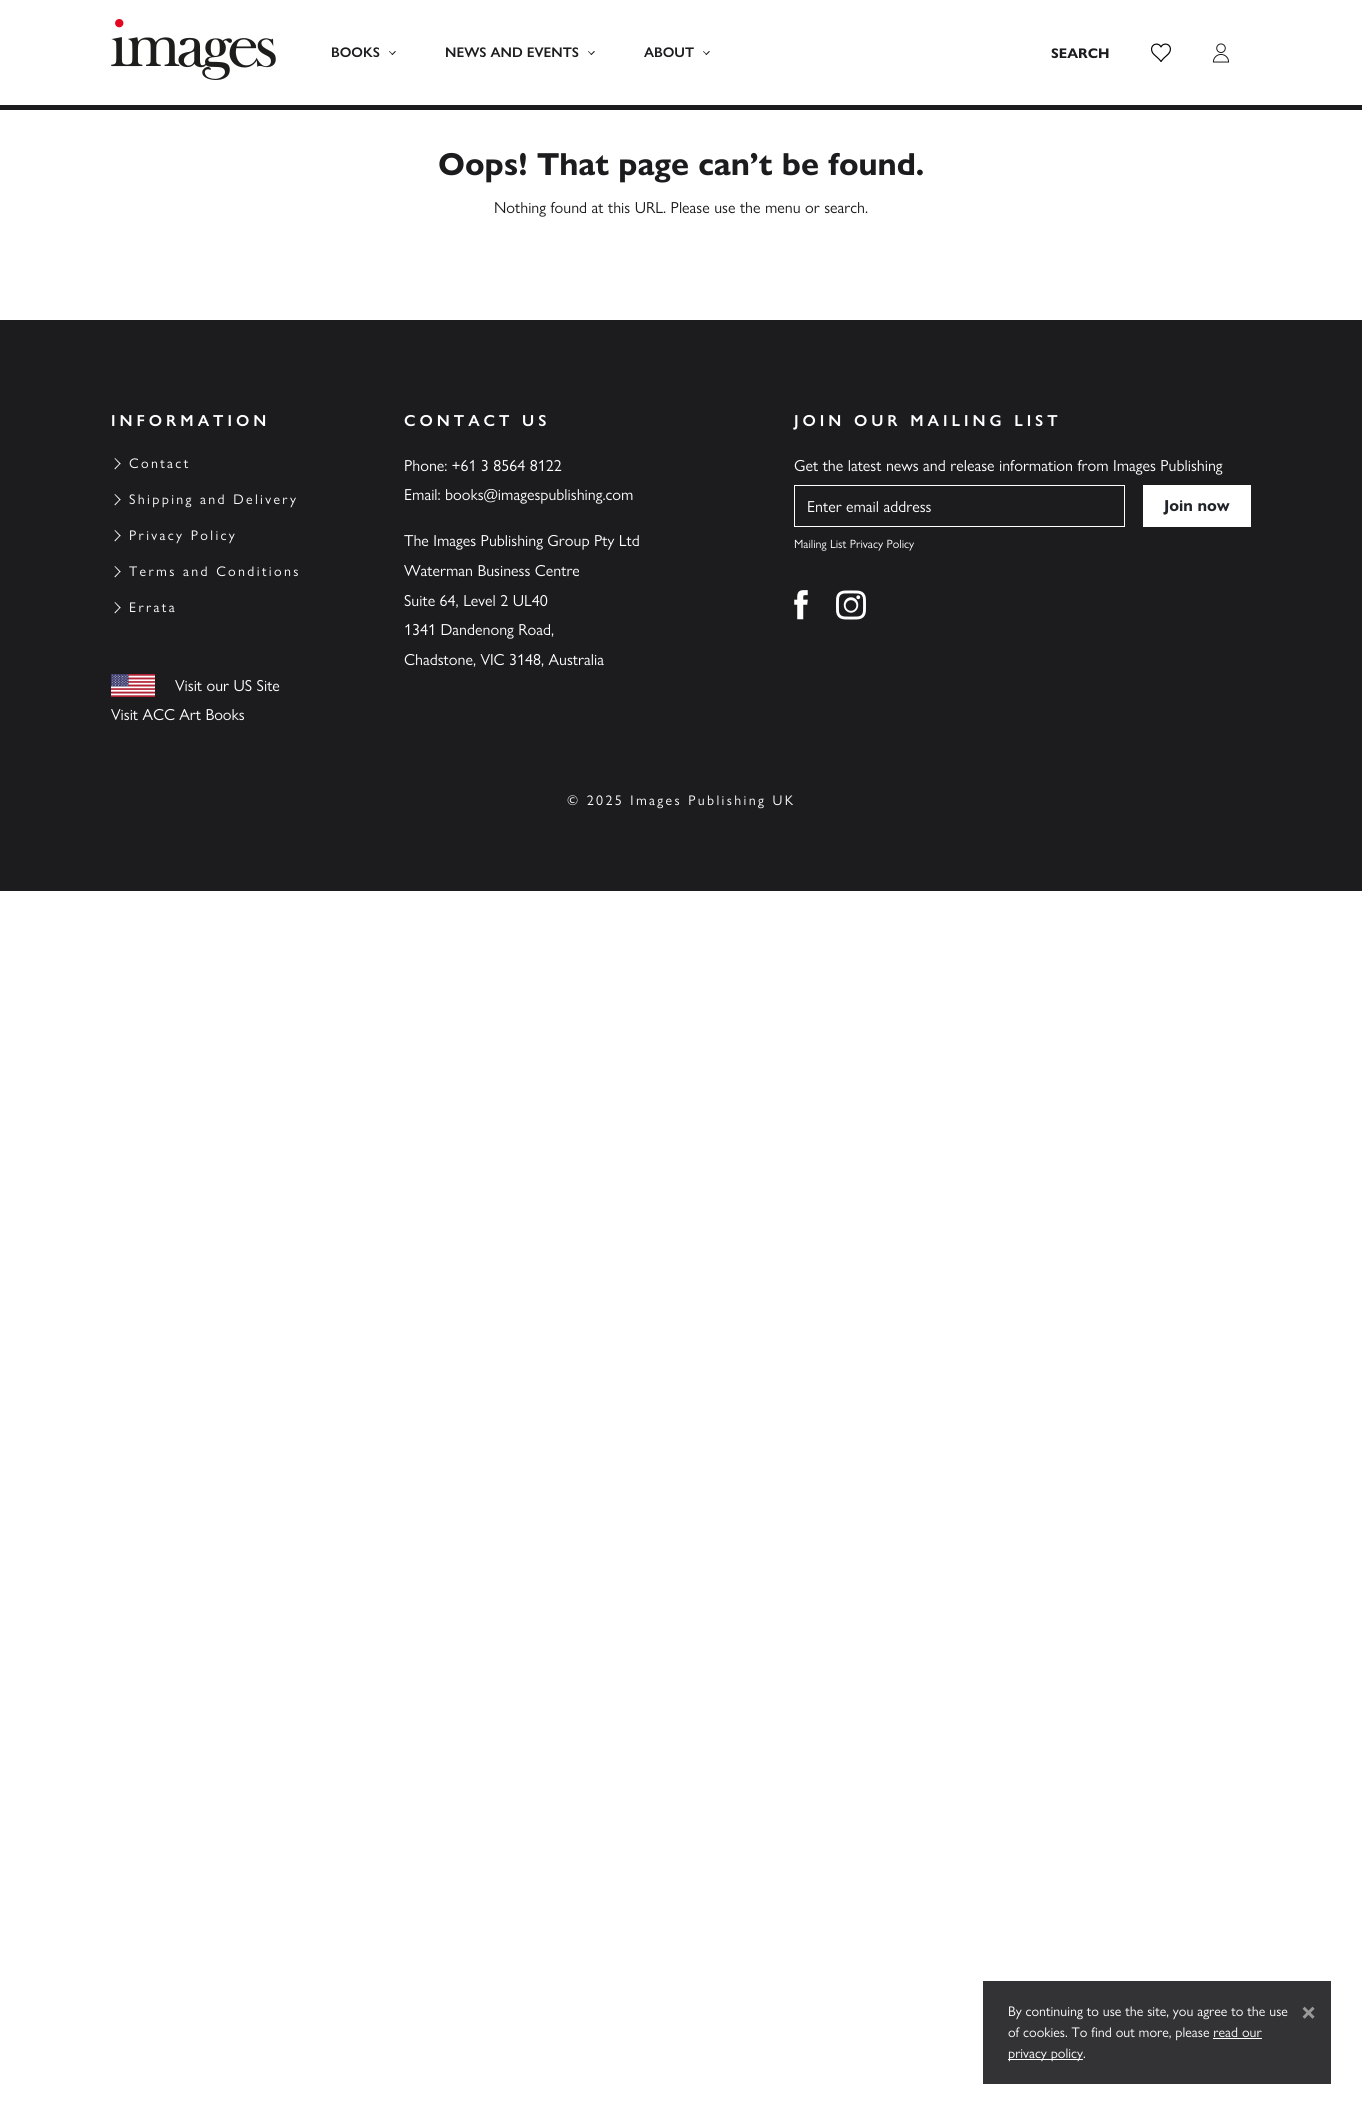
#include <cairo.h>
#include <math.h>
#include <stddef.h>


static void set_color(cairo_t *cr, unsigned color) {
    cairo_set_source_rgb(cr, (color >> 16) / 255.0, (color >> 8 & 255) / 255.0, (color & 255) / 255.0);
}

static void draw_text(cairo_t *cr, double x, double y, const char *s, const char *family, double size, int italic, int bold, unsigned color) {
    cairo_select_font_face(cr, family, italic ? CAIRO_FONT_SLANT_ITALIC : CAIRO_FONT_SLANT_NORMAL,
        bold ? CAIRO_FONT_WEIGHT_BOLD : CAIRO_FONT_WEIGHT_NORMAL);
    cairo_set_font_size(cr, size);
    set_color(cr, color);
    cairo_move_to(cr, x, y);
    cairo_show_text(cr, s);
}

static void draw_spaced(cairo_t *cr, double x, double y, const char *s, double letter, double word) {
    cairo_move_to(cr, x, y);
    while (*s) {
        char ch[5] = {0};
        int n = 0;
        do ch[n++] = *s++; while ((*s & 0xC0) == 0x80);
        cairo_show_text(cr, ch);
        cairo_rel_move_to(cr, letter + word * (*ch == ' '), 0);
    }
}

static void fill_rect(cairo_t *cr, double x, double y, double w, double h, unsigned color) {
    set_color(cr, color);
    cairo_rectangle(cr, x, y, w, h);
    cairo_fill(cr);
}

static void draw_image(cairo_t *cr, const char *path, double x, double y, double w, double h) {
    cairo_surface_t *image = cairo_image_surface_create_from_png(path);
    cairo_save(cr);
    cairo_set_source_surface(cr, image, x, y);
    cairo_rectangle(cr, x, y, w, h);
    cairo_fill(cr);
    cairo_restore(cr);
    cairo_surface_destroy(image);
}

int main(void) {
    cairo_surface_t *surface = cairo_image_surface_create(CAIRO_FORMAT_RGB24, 1362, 2115);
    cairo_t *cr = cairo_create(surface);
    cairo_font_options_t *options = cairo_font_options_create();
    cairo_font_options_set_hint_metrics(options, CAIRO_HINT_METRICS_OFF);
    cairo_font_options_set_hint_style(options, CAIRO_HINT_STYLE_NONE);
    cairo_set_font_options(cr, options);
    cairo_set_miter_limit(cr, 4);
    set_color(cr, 0xFFFFFF);
    cairo_paint(cr);
    fill_rect(cr, 0, 105, 1362, 5, 0x1C1C1E);
    draw_image(cr, "assets/img1.png", 111, 19, 165, 61);
    draw_text(cr, 331, 57, "BOOKS", "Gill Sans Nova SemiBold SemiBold", 14, 0, 0, 0x1C1C1E);
    cairo_new_path(cr);
    cairo_move_to(cr, 395, 51);
    cairo_line_to(cr, 396, 51.5);
    cairo_line_to(cr, 392.5, 55);
    cairo_line_to(cr, 391.5, 54.5);
    cairo_close_path(cr);
    cairo_fill(cr);
    cairo_new_path(cr);
    cairo_move_to(cr, 389.5, 51);
    cairo_line_to(cr, 393, 54.5);
    cairo_line_to(cr, 392.5, 55);
    cairo_line_to(cr, 389, 51.5);
    cairo_close_path(cr);
    cairo_fill(cr);
    draw_text(cr, 445, 57, "NEWS AND EVENTS", "Gill Sans Nova SemiBold SemiBold", 14, 0, 0, 0x1C1C1E);
    cairo_new_path(cr);
    cairo_move_to(cr, 594, 51);
    cairo_line_to(cr, 595, 51.5);
    cairo_line_to(cr, 591.5, 55);
    cairo_line_to(cr, 590.5, 54.5);
    cairo_close_path(cr);
    cairo_fill(cr);
    cairo_new_path(cr);
    cairo_move_to(cr, 588.5, 51);
    cairo_line_to(cr, 592, 54.5);
    cairo_line_to(cr, 591.5, 55);
    cairo_line_to(cr, 588, 51.5);
    cairo_close_path(cr);
    cairo_fill(cr);
    draw_text(cr, 644, 57, "ABOUT", "Gill Sans Nova SemiBold SemiBold", 14, 0, 0, 0x1C1C1E);
    cairo_new_path(cr);
    cairo_move_to(cr, 709, 51);
    cairo_line_to(cr, 710, 51.5);
    cairo_line_to(cr, 706.5, 55);
    cairo_line_to(cr, 705.5, 54.5);
    cairo_close_path(cr);
    cairo_fill(cr);
    cairo_new_path(cr);
    cairo_move_to(cr, 703.5, 51);
    cairo_line_to(cr, 707, 54.5);
    cairo_line_to(cr, 706.5, 55);
    cairo_line_to(cr, 703, 51.5);
    cairo_close_path(cr);
    cairo_fill(cr);
    draw_text(cr, 1051, 58, "SEARCH", "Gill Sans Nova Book", 14, 0, 1, 0x1C1C1E);
    draw_image(cr, "assets/img2.png", 1151, 43, 20, 19);
    draw_image(cr, "assets/img3.png", 1212, 43, 18, 20);
    draw_text(cr, 438, 175, "Oops! That page can’t be found.", "Gill Sans Nova Book", 32, 0, 1, 0x1C1C1E);
    draw_text(cr, 494, 213, "Nothing found at this URL. Please use the menu or search.", "Gill Sans Nova Book", 16, 0, 0, 0x1C1C1E);
    fill_rect(cr, 0, 320, 1362, 571, 0x1C1C1E);
    cairo_select_font_face(cr, "Gill Sans Nova SemiBold SemiBold", CAIRO_FONT_SLANT_NORMAL, CAIRO_FONT_WEIGHT_NORMAL);
    set_color(cr, 0xFFFFFF);
    draw_spaced(cr, 111, 426, "INFORMATION", 4, 0);
    cairo_new_path(cr);
    cairo_move_to(cr, 115, 458);
    cairo_line_to(cr, 120.5, 463.5);
    cairo_line_to(cr, 120, 464.5);
    cairo_line_to(cr, 114.5, 458.5);
    cairo_close_path(cr);
    cairo_fill(cr);
    cairo_new_path(cr);
    cairo_move_to(cr, 120, 463);
    cairo_line_to(cr, 120.5, 463.5);
    cairo_line_to(cr, 115, 469.5);
    cairo_line_to(cr, 114.5, 468.5);
    cairo_close_path(cr);
    cairo_move_to(cr, 115, 494);
    cairo_line_to(cr, 120.5, 499.5);
    cairo_line_to(cr, 120, 500.5);
    cairo_line_to(cr, 114.5, 494.5);
    cairo_close_path(cr);
    cairo_fill(cr);
    cairo_select_font_face(cr, "Gill Sans Nova Book", CAIRO_FONT_SLANT_NORMAL, CAIRO_FONT_WEIGHT_NORMAL);
    cairo_set_font_size(cr, 14);
    draw_spaced(cr, 129, 468, "Contact", 2.35, 0);
    cairo_new_path(cr);
    cairo_move_to(cr, 120, 499);
    cairo_line_to(cr, 120.5, 499.5);
    cairo_line_to(cr, 115, 505.5);
    cairo_line_to(cr, 114.5, 504.5);
    cairo_close_path(cr);
    cairo_move_to(cr, 115, 530);
    cairo_line_to(cr, 120.5, 535.5);
    cairo_line_to(cr, 120, 536.5);
    cairo_line_to(cr, 114.5, 530.5);
    cairo_close_path(cr);
    cairo_fill(cr);
    draw_spaced(cr, 129, 504, "Shipping and Delivery", 2.35, 0);
    cairo_new_path(cr);
    cairo_move_to(cr, 120, 535);
    cairo_line_to(cr, 120.5, 535.5);
    cairo_line_to(cr, 115, 541.5);
    cairo_line_to(cr, 114.5, 540.5);
    cairo_close_path(cr);
    cairo_move_to(cr, 115, 566);
    cairo_line_to(cr, 120.5, 571.5);
    cairo_line_to(cr, 120, 572.5);
    cairo_line_to(cr, 114.5, 566.5);
    cairo_close_path(cr);
    cairo_fill(cr);
    draw_spaced(cr, 129, 540, "Privacy Policy", 2.35, 0);
    cairo_new_path(cr);
    cairo_move_to(cr, 120, 571);
    cairo_line_to(cr, 120.5, 571.5);
    cairo_line_to(cr, 115, 577.5);
    cairo_line_to(cr, 114.5, 576.5);
    cairo_close_path(cr);
    cairo_move_to(cr, 115, 602);
    cairo_line_to(cr, 120.5, 607.5);
    cairo_line_to(cr, 120, 608.5);
    cairo_line_to(cr, 114.5, 602.5);
    cairo_close_path(cr);
    cairo_fill(cr);
    draw_spaced(cr, 129, 576, "Terms and Conditions", 2.35, 0);
    cairo_new_path(cr);
    cairo_move_to(cr, 120, 607);
    cairo_line_to(cr, 120.5, 607.5);
    cairo_line_to(cr, 115, 613.5);
    cairo_line_to(cr, 114.5, 612.5);
    cairo_close_path(cr);
    cairo_fill(cr);
    draw_spaced(cr, 129, 612, "Errata", 2.35, 0);
    draw_image(cr, "assets/img4.png", 111, 674, 44, 23);
    draw_text(cr, 175, 691, "Visit our US Site", "Gill Sans Nova Book", 16, 0, 0, 0xFFFFFF);
    draw_text(cr, 111, 720, "Visit ACC Art Books", "Gill Sans Nova Book", 16, 0, 0, 0xFFFFFF);
    cairo_select_font_face(cr, "Gill Sans Nova SemiBold SemiBold", CAIRO_FONT_SLANT_NORMAL, CAIRO_FONT_WEIGHT_NORMAL);
    draw_spaced(cr, 404, 426, "CONTACT US", 4, 0);
    draw_text(cr, 404, 471, "Phone: +61 3 8564 8122", "Gill Sans Nova Book", 16, 0, 0, 0xFFFFFF);
    draw_text(cr, 404, 500, "Email: books@imagespublishing.com", "Gill Sans Nova Book", 16, 0, 0, 0xFFFFFF);
    draw_text(cr, 404, 546, "The Images Publishing Group Pty Ltd", "Gill Sans Nova Book", 16, 0, 0, 0xFFFFFF);
    draw_text(cr, 404, 576, "Waterman Business Centre", "Gill Sans Nova Book", 16, 0, 0, 0xFFFFFF);
    draw_text(cr, 404, 606, "Suite 64, Level 2 UL40", "Gill Sans Nova Book", 16, 0, 0, 0xFFFFFF);
    draw_text(cr, 404, 635, "1341 Dandenong Road,", "Gill Sans Nova Book", 16, 0, 0, 0xFFFFFF);
    draw_text(cr, 404, 665, "Chadstone, VIC 3148, Australia", "Gill Sans Nova Book", 16, 0, 0, 0xFFFFFF);
    cairo_select_font_face(cr, "Gill Sans Nova SemiBold SemiBold", CAIRO_FONT_SLANT_NORMAL, CAIRO_FONT_WEIGHT_NORMAL);
    draw_spaced(cr, 794, 426, "JOIN OUR MAILING LIST", 4, 0);
    draw_text(cr, 794, 471, "Get the latest news and release information from Images Publishing", "Gill Sans Nova Book", 16, 0, 0, 0xFFFFFF);
    cairo_rectangle(cr, 794.5, 485.5, 330, 41);
    cairo_set_line_width(cr, 1);
    cairo_stroke(cr);
    draw_text(cr, 807, 512, "Enter email address", "Gill Sans Nova Book", 16, 0, 0, 0xFFFFFF);
    fill_rect(cr, 1143, 485, 108, 42, 0xFFFFFF);
    draw_text(cr, 1164, 511, "Join now", "Gill Sans Nova Book", 16, 0, 1, 0x212529);
    draw_text(cr, 794, 548, "Mailing List Privacy Policy", "Gill Sans Nova Book", 12, 0, 0, 0xFFFFFF);
    draw_image(cr, "assets/img5.png", 794, 590, 14, 30);
    draw_image(cr, "assets/img6.png", 836, 590, 30, 30);
    cairo_set_font_size(cr, 14);
    draw_spaced(cr, 567, 805, "© 2025 Images Publishing UK", 2.35, 0);
    fill_rect(cr, 983, 1981, 348, 103, 0x333335);
    draw_text(cr, 1008, 2016, "By continuing to use the site, you agree to the use", "Gill Sans Nova Book", 14, 0, 0, 0xFFFFFF);
    draw_text(cr, 1008, 2037, "of cookies. To find out more, please read our", "Gill Sans Nova Book", 14, 0, 0, 0xFFFFFF);
    fill_rect(cr, 1008, 2059, 75, 1, 0xFFFFFF);
    draw_text(cr, 1008, 2058, "privacy policy.", "Gill Sans Nova Book", 14, 0, 0, 0xFFFFFF);
    fill_rect(cr, 1213, 2038, 49, 1, 0xFFFFFF);
    draw_text(cr, 1301, 2021, "×", "Gill Sans Nova Book", 24, 0, 1, 0x99999A);
    cairo_surface_write_to_png(surface, "output.png");
    cairo_font_options_destroy(options);
    cairo_destroy(cr);
    cairo_surface_destroy(surface);
    return 0;
}
